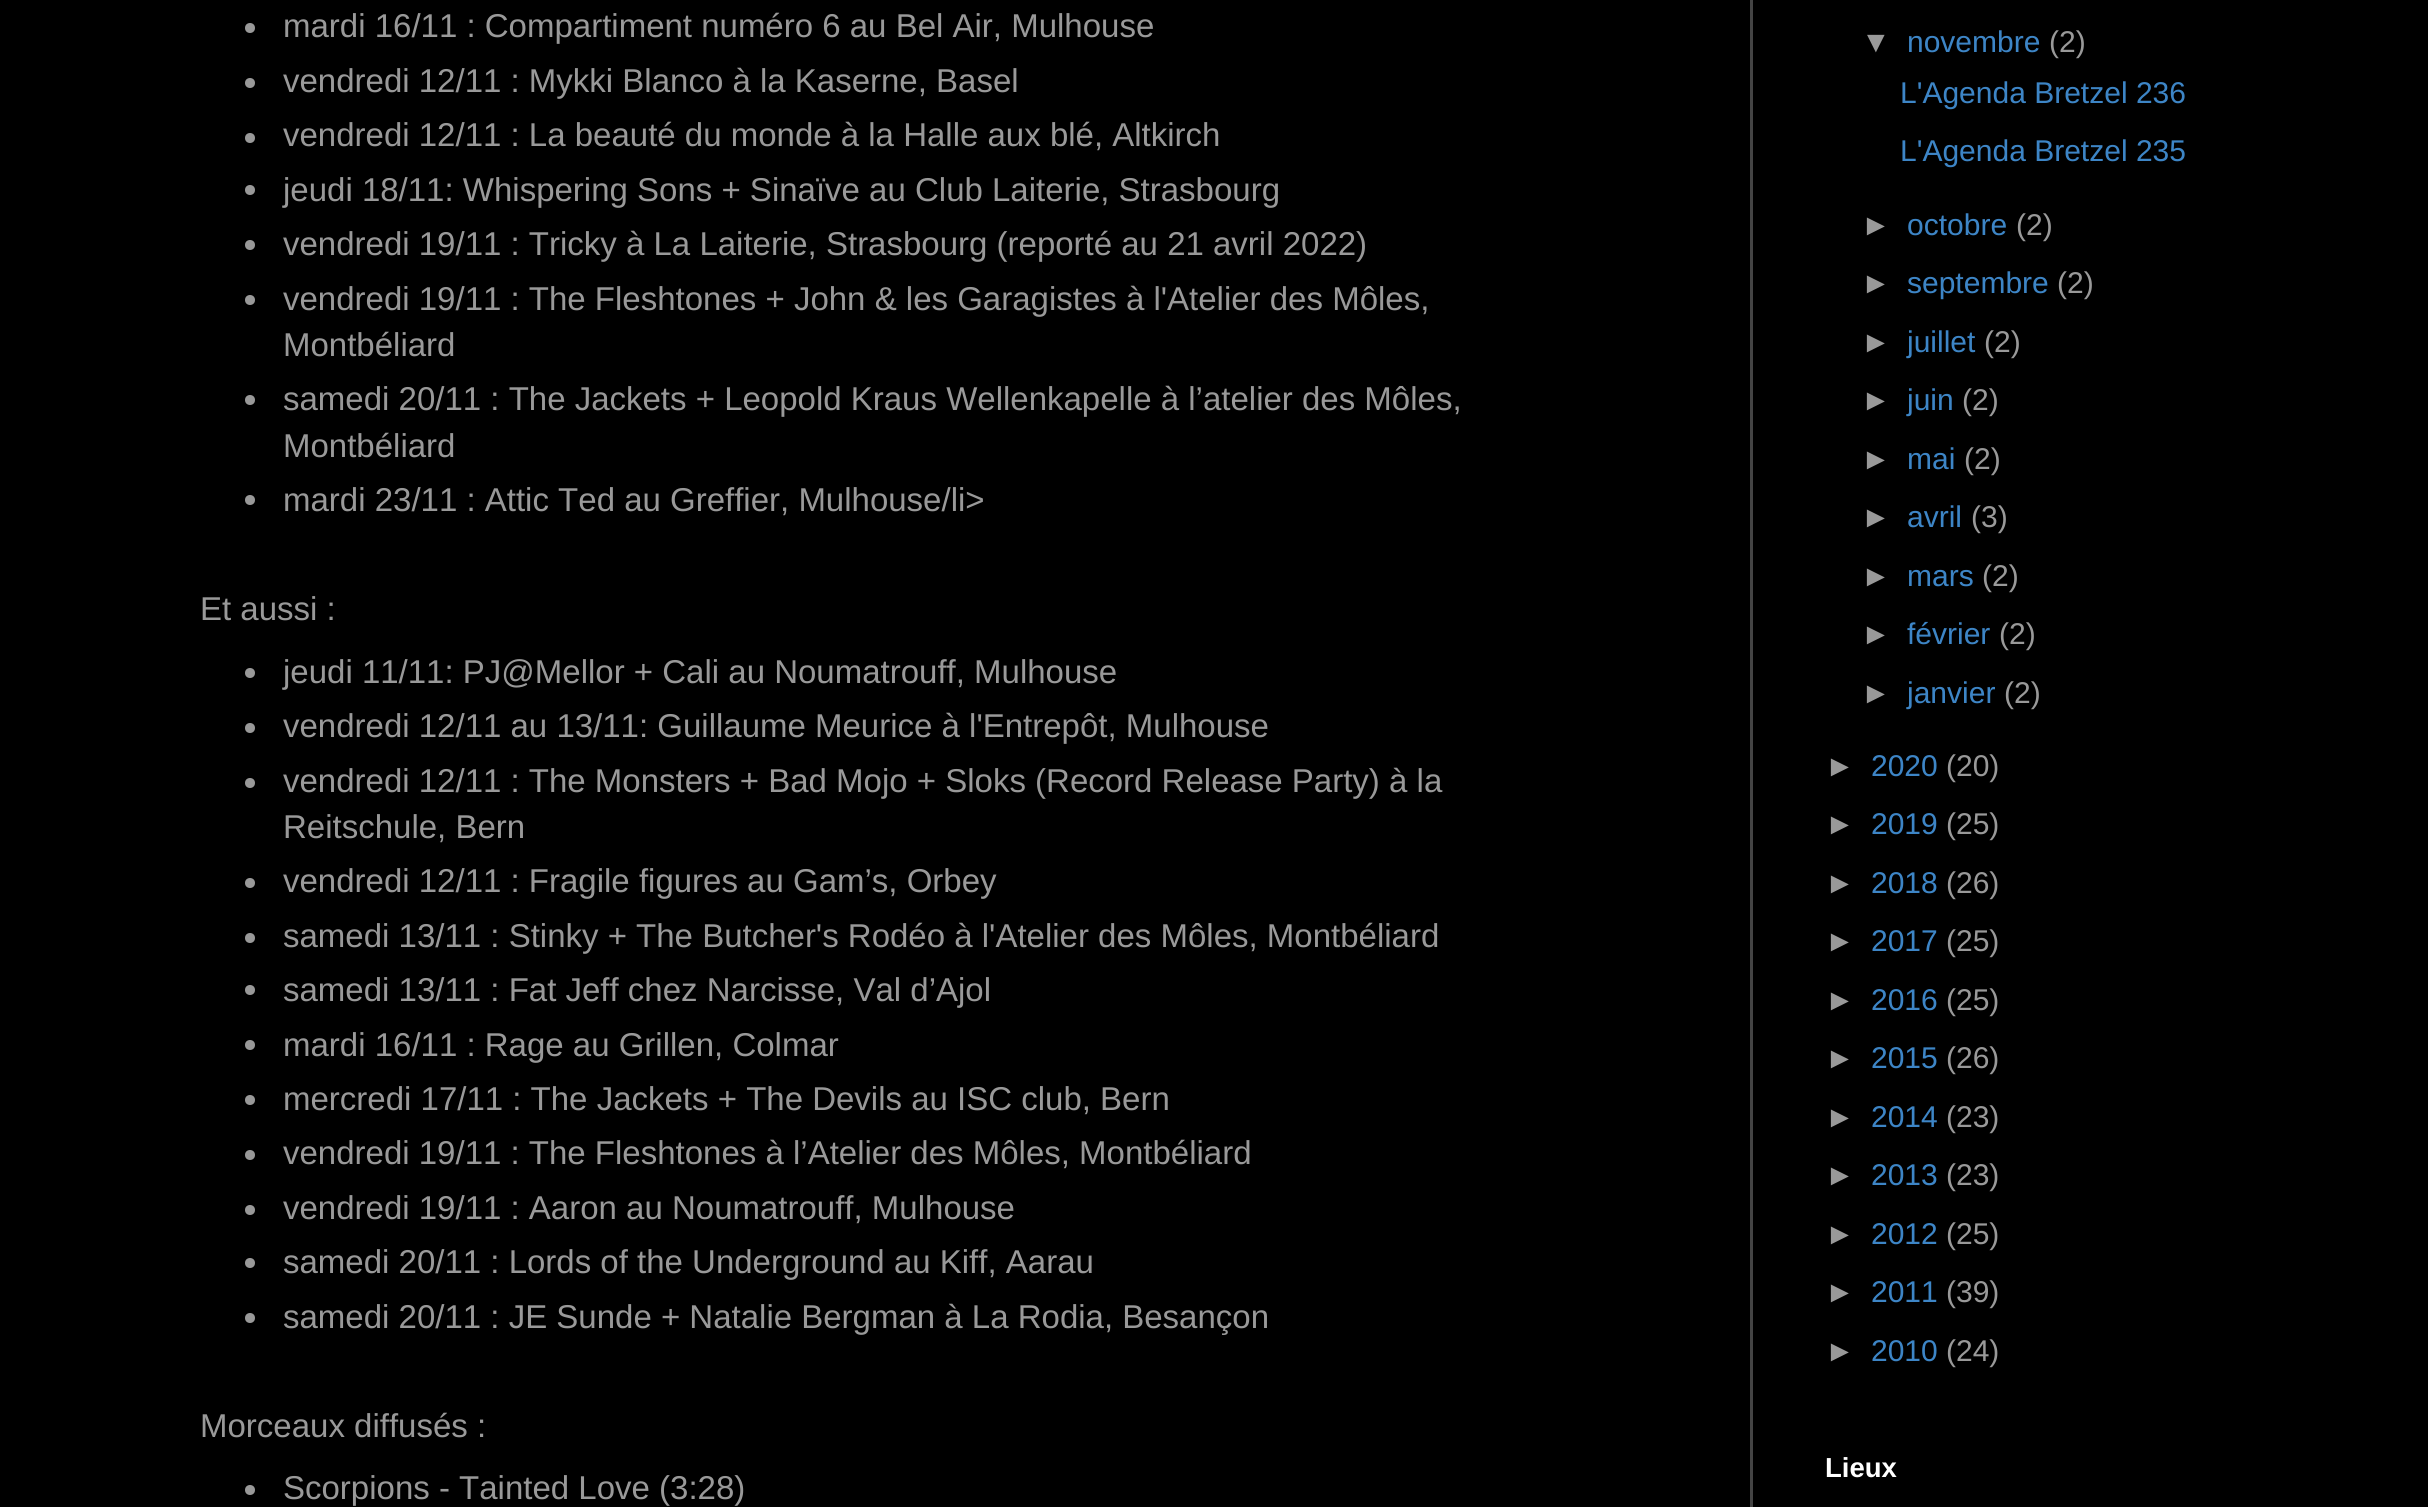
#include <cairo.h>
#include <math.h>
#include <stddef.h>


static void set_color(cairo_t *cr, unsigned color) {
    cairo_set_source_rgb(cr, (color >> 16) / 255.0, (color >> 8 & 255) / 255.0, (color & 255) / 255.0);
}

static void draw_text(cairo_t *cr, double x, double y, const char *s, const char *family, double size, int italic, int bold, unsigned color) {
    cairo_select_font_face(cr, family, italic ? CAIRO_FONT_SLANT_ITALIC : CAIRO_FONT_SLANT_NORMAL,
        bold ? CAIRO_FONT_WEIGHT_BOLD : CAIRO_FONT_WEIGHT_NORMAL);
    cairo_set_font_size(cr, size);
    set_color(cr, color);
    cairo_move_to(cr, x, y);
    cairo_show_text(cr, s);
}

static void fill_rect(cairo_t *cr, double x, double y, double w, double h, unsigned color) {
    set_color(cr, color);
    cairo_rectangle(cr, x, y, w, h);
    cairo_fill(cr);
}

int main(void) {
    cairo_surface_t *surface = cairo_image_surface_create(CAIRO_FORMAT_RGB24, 2428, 1507);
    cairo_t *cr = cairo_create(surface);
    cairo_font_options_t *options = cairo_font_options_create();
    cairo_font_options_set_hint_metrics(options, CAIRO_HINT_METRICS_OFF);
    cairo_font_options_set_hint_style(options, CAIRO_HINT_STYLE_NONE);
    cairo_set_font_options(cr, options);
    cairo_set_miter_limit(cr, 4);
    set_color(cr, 0x000000);
    cairo_paint(cr);
    fill_rect(cr, 1750, 0, 3, 1507, 0x444444);
    set_color(cr, 0x999999);
    cairo_arc(cr, 250, 28, 5, 0, 2 * M_PI);
    cairo_fill(cr);
    draw_text(cr, 283, 37, "mardi 16/11 : Compartiment numéro 6 au Bel Air, Mulhouse", "Liberation Sans", 33, 0, 0, 0x999999);
    cairo_new_path(cr);
    cairo_arc(cr, 250, 83, 5, 0, 2 * M_PI);
    cairo_fill(cr);
    draw_text(cr, 283, 92, "vendredi 12/11 : Mykki Blanco à la Kaserne, Basel", "Liberation Sans", 33, 0, 0, 0x999999);
    cairo_new_path(cr);
    cairo_arc(cr, 250, 138, 5, 0, 2 * M_PI);
    cairo_fill(cr);
    draw_text(cr, 283, 146, "vendredi 12/11 : La beauté du monde à la Halle aux blé, Altkirch", "Liberation Sans", 33, 0, 0, 0x999999);
    cairo_new_path(cr);
    cairo_arc(cr, 250, 190, 5, 0, 2 * M_PI);
    cairo_fill(cr);
    draw_text(cr, 283, 201, "jeudi 18/11: Whispering Sons + Sinaïve au Club Laiterie, Strasbourg", "Liberation Sans", 33, 0, 0, 0x999999);
    cairo_new_path(cr);
    cairo_arc(cr, 250, 245, 5, 0, 2 * M_PI);
    cairo_fill(cr);
    draw_text(cr, 283, 255, "vendredi 19/11 : Tricky à La Laiterie, Strasbourg (reporté au 21 avril 2022)", "Liberation Sans", 33, 0, 0, 0x999999);
    cairo_new_path(cr);
    cairo_arc(cr, 250, 300, 5, 0, 2 * M_PI);
    cairo_fill(cr);
    draw_text(cr, 283, 310, "vendredi 19/11 : The Fleshtones + John & les Garagistes à l'Atelier des Môles,", "Liberation Sans", 33, 0, 0, 0x999999);
    draw_text(cr, 283, 356, "Montbéliard", "Liberation Sans", 33, 0, 0, 0x999999);
    cairo_new_path(cr);
    cairo_arc(cr, 250, 400, 5, 0, 2 * M_PI);
    cairo_fill(cr);
    draw_text(cr, 283, 410, "samedi 20/11 : The Jackets + Leopold Kraus Wellenkapelle à l’atelier des Môles,", "Liberation Sans", 33, 0, 0, 0x999999);
    draw_text(cr, 283, 457, "Montbéliard", "Liberation Sans", 33, 0, 0, 0x999999);
    cairo_new_path(cr);
    cairo_arc(cr, 250, 500, 5, 0, 2 * M_PI);
    cairo_fill(cr);
    draw_text(cr, 283, 511, "mardi 23/11 : Attic Ted au Greffier, Mulhouse/li>", "Liberation Sans", 33, 0, 0, 0x999999);
    draw_text(cr, 200, 620, "Et aussi :", "Liberation Sans", 33, 0, 0, 0x999999);
    cairo_new_path(cr);
    cairo_arc(cr, 250, 673, 5, 0, 2 * M_PI);
    cairo_fill(cr);
    draw_text(cr, 283, 683, "jeudi 11/11: PJ@Mellor + Cali au Noumatrouff, Mulhouse", "Liberation Sans", 33, 0, 0, 0x999999);
    cairo_new_path(cr);
    cairo_arc(cr, 250, 728, 5, 0, 2 * M_PI);
    cairo_fill(cr);
    draw_text(cr, 283, 737, "vendredi 12/11 au 13/11: Guillaume Meurice à l'Entrepôt, Mulhouse", "Liberation Sans", 33, 0, 0, 0x999999);
    cairo_new_path(cr);
    cairo_arc(cr, 250, 783, 5, 0, 2 * M_PI);
    cairo_fill(cr);
    draw_text(cr, 283, 792, "vendredi 12/11 : The Monsters + Bad Mojo + Sloks (Record Release Party) à la", "Liberation Sans", 33, 0, 0, 0x999999);
    draw_text(cr, 283, 838, "Reitschule, Bern", "Liberation Sans", 33, 0, 0, 0x999999);
    cairo_new_path(cr);
    cairo_arc(cr, 250, 883, 5, 0, 2 * M_PI);
    cairo_fill(cr);
    draw_text(cr, 283, 892, "vendredi 12/11 : Fragile figures au Gam’s, Orbey", "Liberation Sans", 33, 0, 0, 0x999999);
    cairo_new_path(cr);
    cairo_arc(cr, 250, 938, 5, 0, 2 * M_PI);
    cairo_fill(cr);
    draw_text(cr, 283, 947, "samedi 13/11 : Stinky + The Butcher's Rodéo à l'Atelier des Môles, Montbéliard", "Liberation Sans", 33, 0, 0, 0x999999);
    cairo_new_path(cr);
    cairo_arc(cr, 250, 990, 5, 0, 2 * M_PI);
    cairo_fill(cr);
    draw_text(cr, 283, 1001, "samedi 13/11 : Fat Jeff chez Narcisse, Val d’Ajol", "Liberation Sans", 33, 0, 0, 0x999999);
    cairo_new_path(cr);
    cairo_arc(cr, 250, 1045, 5, 0, 2 * M_PI);
    cairo_fill(cr);
    draw_text(cr, 283, 1056, "mardi 16/11 : Rage au Grillen, Colmar", "Liberation Sans", 33, 0, 0, 0x999999);
    cairo_new_path(cr);
    cairo_arc(cr, 250, 1100, 5, 0, 2 * M_PI);
    cairo_fill(cr);
    draw_text(cr, 283, 1110, "mercredi 17/11 : The Jackets + The Devils au ISC club, Bern", "Liberation Sans", 33, 0, 0, 0x999999);
    cairo_new_path(cr);
    cairo_arc(cr, 250, 1155, 5, 0, 2 * M_PI);
    cairo_fill(cr);
    draw_text(cr, 283, 1164, "vendredi 19/11 : The Fleshtones à l’Atelier des Môles, Montbéliard", "Liberation Sans", 33, 0, 0, 0x999999);
    cairo_new_path(cr);
    cairo_arc(cr, 250, 1210, 5, 0, 2 * M_PI);
    cairo_fill(cr);
    draw_text(cr, 283, 1219, "vendredi 19/11 : Aaron au Noumatrouff, Mulhouse", "Liberation Sans", 33, 0, 0, 0x999999);
    cairo_new_path(cr);
    cairo_arc(cr, 250, 1263, 5, 0, 2 * M_PI);
    cairo_fill(cr);
    draw_text(cr, 283, 1273, "samedi 20/11 : Lords of the Underground au Kiff, Aarau", "Liberation Sans", 33, 0, 0, 0x999999);
    cairo_new_path(cr);
    cairo_arc(cr, 250, 1318, 5, 0, 2 * M_PI);
    cairo_fill(cr);
    draw_text(cr, 283, 1328, "samedi 20/11 : JE Sunde + Natalie Bergman à La Rodia, Besançon", "Liberation Sans", 33, 0, 0, 0x999999);
    draw_text(cr, 200, 1437, "Morceaux diffusés :", "Liberation Sans", 33, 0, 0, 0x999999);
    cairo_new_path(cr);
    cairo_arc(cr, 250, 1490, 5, 0, 2 * M_PI);
    cairo_fill(cr);
    draw_text(cr, 283, 1499, "Scorpions - Tainted Love (3:28)", "Liberation Sans", 33, 0, 0, 0x999999);
    draw_text(cr, 1861, 52, "▼", "Liberation Sans", 30, 0, 0, 0x999999);
    draw_text(cr, 1907, 52, "novembre", "Liberation Sans", 30, 0, 0, 0x3D85C6);
    draw_text(cr, 2049, 52, "(2)", "Liberation Sans", 30, 0, 0, 0x999999);
    draw_text(cr, 1900, 103, "L'Agenda Bretzel 236", "Liberation Sans", 30, 0, 0, 0x3D85C6);
    draw_text(cr, 1900, 161, "L'Agenda Bretzel 235", "Liberation Sans", 30, 0, 0, 0x3D85C6);
    draw_text(cr, 1861, 235, "►", "Liberation Sans", 30, 0, 0, 0x999999);
    draw_text(cr, 1907, 235, "octobre", "Liberation Sans", 30, 0, 0, 0x3D85C6);
    draw_text(cr, 2016, 235, "(2)", "Liberation Sans", 30, 0, 0, 0x999999);
    draw_text(cr, 1861, 293, "►", "Liberation Sans", 30, 0, 0, 0x999999);
    draw_text(cr, 1907, 293, "septembre", "Liberation Sans", 30, 0, 0, 0x3D85C6);
    draw_text(cr, 2057, 293, "(2)", "Liberation Sans", 30, 0, 0, 0x999999);
    draw_text(cr, 1861, 352, "►", "Liberation Sans", 30, 0, 0, 0x999999);
    draw_text(cr, 1907, 352, "juillet", "Liberation Sans", 30, 0, 0, 0x3D85C6);
    draw_text(cr, 1984, 352, "(2)", "Liberation Sans", 30, 0, 0, 0x999999);
    draw_text(cr, 1861, 410, "►", "Liberation Sans", 30, 0, 0, 0x999999);
    draw_text(cr, 1907, 410, "juin", "Liberation Sans", 30, 0, 0, 0x3D85C6);
    draw_text(cr, 1962, 410, "(2)", "Liberation Sans", 30, 0, 0, 0x999999);
    draw_text(cr, 1861, 469, "►", "Liberation Sans", 30, 0, 0, 0x999999);
    draw_text(cr, 1907, 469, "mai", "Liberation Sans", 30, 0, 0, 0x3D85C6);
    draw_text(cr, 1964, 469, "(2)", "Liberation Sans", 30, 0, 0, 0x999999);
    draw_text(cr, 1861, 527, "►", "Liberation Sans", 30, 0, 0, 0x999999);
    draw_text(cr, 1907, 527, "avril", "Liberation Sans", 30, 0, 0, 0x3D85C6);
    draw_text(cr, 1971, 527, "(3)", "Liberation Sans", 30, 0, 0, 0x999999);
    draw_text(cr, 1861, 586, "►", "Liberation Sans", 30, 0, 0, 0x999999);
    draw_text(cr, 1907, 586, "mars", "Liberation Sans", 30, 0, 0, 0x3D85C6);
    draw_text(cr, 1982, 586, "(2)", "Liberation Sans", 30, 0, 0, 0x999999);
    draw_text(cr, 1861, 644, "►", "Liberation Sans", 30, 0, 0, 0x999999);
    draw_text(cr, 1907, 644, "février", "Liberation Sans", 30, 0, 0, 0x3D85C6);
    draw_text(cr, 1999, 644, "(2)", "Liberation Sans", 30, 0, 0, 0x999999);
    draw_text(cr, 1861, 703, "►", "Liberation Sans", 30, 0, 0, 0x999999);
    draw_text(cr, 1907, 703, "janvier", "Liberation Sans", 30, 0, 0, 0x3D85C6);
    draw_text(cr, 2004, 703, "(2)", "Liberation Sans", 30, 0, 0, 0x999999);
    draw_text(cr, 1825, 776, "►", "Liberation Sans", 30, 0, 0, 0x999999);
    draw_text(cr, 1871, 776, "2020", "Liberation Sans", 30, 0, 0, 0x3D85C6);
    draw_text(cr, 1946, 776, "(20)", "Liberation Sans", 30, 0, 0, 0x999999);
    draw_text(cr, 1825, 834, "►", "Liberation Sans", 30, 0, 0, 0x999999);
    draw_text(cr, 1871, 834, "2019", "Liberation Sans", 30, 0, 0, 0x3D85C6);
    draw_text(cr, 1946, 834, "(25)", "Liberation Sans", 30, 0, 0, 0x999999);
    draw_text(cr, 1825, 893, "►", "Liberation Sans", 30, 0, 0, 0x999999);
    draw_text(cr, 1871, 893, "2018", "Liberation Sans", 30, 0, 0, 0x3D85C6);
    draw_text(cr, 1946, 893, "(26)", "Liberation Sans", 30, 0, 0, 0x999999);
    draw_text(cr, 1825, 951, "►", "Liberation Sans", 30, 0, 0, 0x999999);
    draw_text(cr, 1871, 951, "2017", "Liberation Sans", 30, 0, 0, 0x3D85C6);
    draw_text(cr, 1946, 951, "(25)", "Liberation Sans", 30, 0, 0, 0x999999);
    draw_text(cr, 1825, 1010, "►", "Liberation Sans", 30, 0, 0, 0x999999);
    draw_text(cr, 1871, 1010, "2016", "Liberation Sans", 30, 0, 0, 0x3D85C6);
    draw_text(cr, 1946, 1010, "(25)", "Liberation Sans", 30, 0, 0, 0x999999);
    draw_text(cr, 1825, 1068, "►", "Liberation Sans", 30, 0, 0, 0x999999);
    draw_text(cr, 1871, 1068, "2015", "Liberation Sans", 30, 0, 0, 0x3D85C6);
    draw_text(cr, 1946, 1068, "(26)", "Liberation Sans", 30, 0, 0, 0x999999);
    draw_text(cr, 1825, 1127, "►", "Liberation Sans", 30, 0, 0, 0x999999);
    draw_text(cr, 1871, 1127, "2014", "Liberation Sans", 30, 0, 0, 0x3D85C6);
    draw_text(cr, 1946, 1127, "(23)", "Liberation Sans", 30, 0, 0, 0x999999);
    draw_text(cr, 1825, 1185, "►", "Liberation Sans", 30, 0, 0, 0x999999);
    draw_text(cr, 1871, 1185, "2013", "Liberation Sans", 30, 0, 0, 0x3D85C6);
    draw_text(cr, 1946, 1185, "(23)", "Liberation Sans", 30, 0, 0, 0x999999);
    draw_text(cr, 1825, 1244, "►", "Liberation Sans", 30, 0, 0, 0x999999);
    draw_text(cr, 1871, 1244, "2012", "Liberation Sans", 30, 0, 0, 0x3D85C6);
    draw_text(cr, 1946, 1244, "(25)", "Liberation Sans", 30, 0, 0, 0x999999);
    draw_text(cr, 1825, 1302, "►", "Liberation Sans", 30, 0, 0, 0x999999);
    draw_text(cr, 1871, 1302, "2011", "Liberation Sans", 30, 0, 0, 0x3D85C6);
    draw_text(cr, 1946, 1302, "(39)", "Liberation Sans", 30, 0, 0, 0x999999);
    draw_text(cr, 1825, 1361, "►", "Liberation Sans", 30, 0, 0, 0x999999);
    draw_text(cr, 1871, 1361, "2010", "Liberation Sans", 30, 0, 0, 0x3D85C6);
    draw_text(cr, 1946, 1361, "(24)", "Liberation Sans", 30, 0, 0, 0x999999);
    draw_text(cr, 1825, 1477, "Lieux", "Liberation Sans", 27.5, 0, 1, 0xFFFFFF);
    cairo_surface_write_to_png(surface, "output.png");
    cairo_font_options_destroy(options);
    cairo_destroy(cr);
    cairo_surface_destroy(surface);
    return 0;
}
